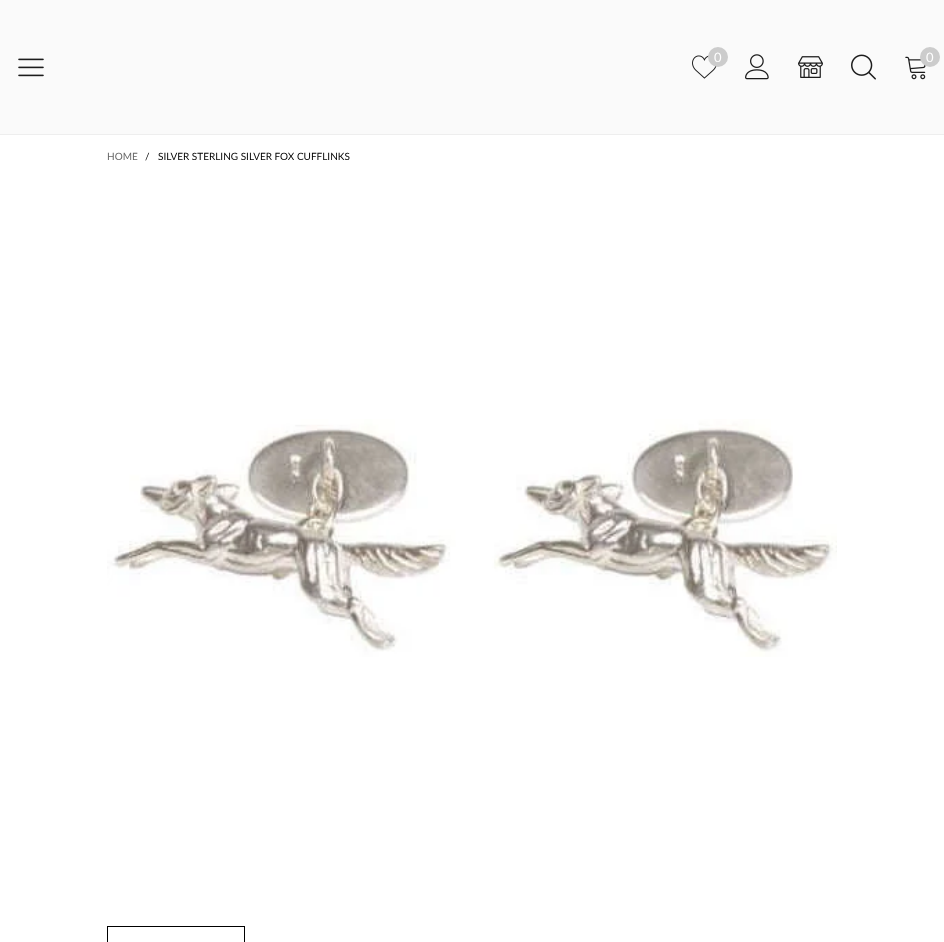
async function draw(canvas) {
	canvas.width = 944;
	canvas.height = 942;
	const c = canvas.getContext('2d');
	c.miterLimit = 4;
	c.fontKerning = 'normal';
	async function loadImage(src) {
		const img = new Image();
		img.src = src;
		await img.decode();
		return img;
	}

	c.fillStyle = '#fff';
	c.fillRect(0, 0, 944, 942);
	c.fillStyle = '#fafafa';
	c.fillRect(0, 0, 944, 134);
	c.fillStyle = '#eee';
	c.fillRect(0, 134, 944, 1);
	c.drawImage(await loadImage('img1.png'), 18, 58, 26, 19);
	c.drawImage(await loadImage('img2.png'), 692, 55, 25, 24);
	c.fillStyle = '#ccc';
	c.beginPath();
	c.arc(718, 57, 10, 0, 2 * Math.PI);
	c.fill();
	c.font = '13px Lato';
	c.fillStyle = '#fff';
	c.fillText('0', 714, 62);
	c.drawImage(await loadImage('img3.png'), 745, 54, 24, 26);
	c.drawImage(await loadImage('img4.png'), 798, 56, 25, 22);
	c.drawImage(await loadImage('img5.png'), 851, 54, 25, 26);
	c.drawImage(await loadImage('img6.png'), 905, 56, 21, 24);
	c.fillStyle = '#ccc';
	c.beginPath();
	c.arc(930, 57, 10, 0, 2 * Math.PI);
	c.fill();
	c.fillStyle = '#fff';
	c.fillText('0', 926, 62);
	c.font = '10px Lato';
	c.fillStyle = '#666';
	c.fillText('HOME', 107, 160);
	c.fillStyle = '#000';
	c.fillText('/', 145, 160);
	c.fillText('SILVER STERLING SILVER FOX CUFFLINKS', 158, 160);
	c.drawImage(await loadImage('img7.png'), 107, 419, 730, 238);
	c.strokeStyle = '#000';
	c.strokeRect(107.5, 926.5, 137, 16);
}

draw(document.querySelector('canvas'));
